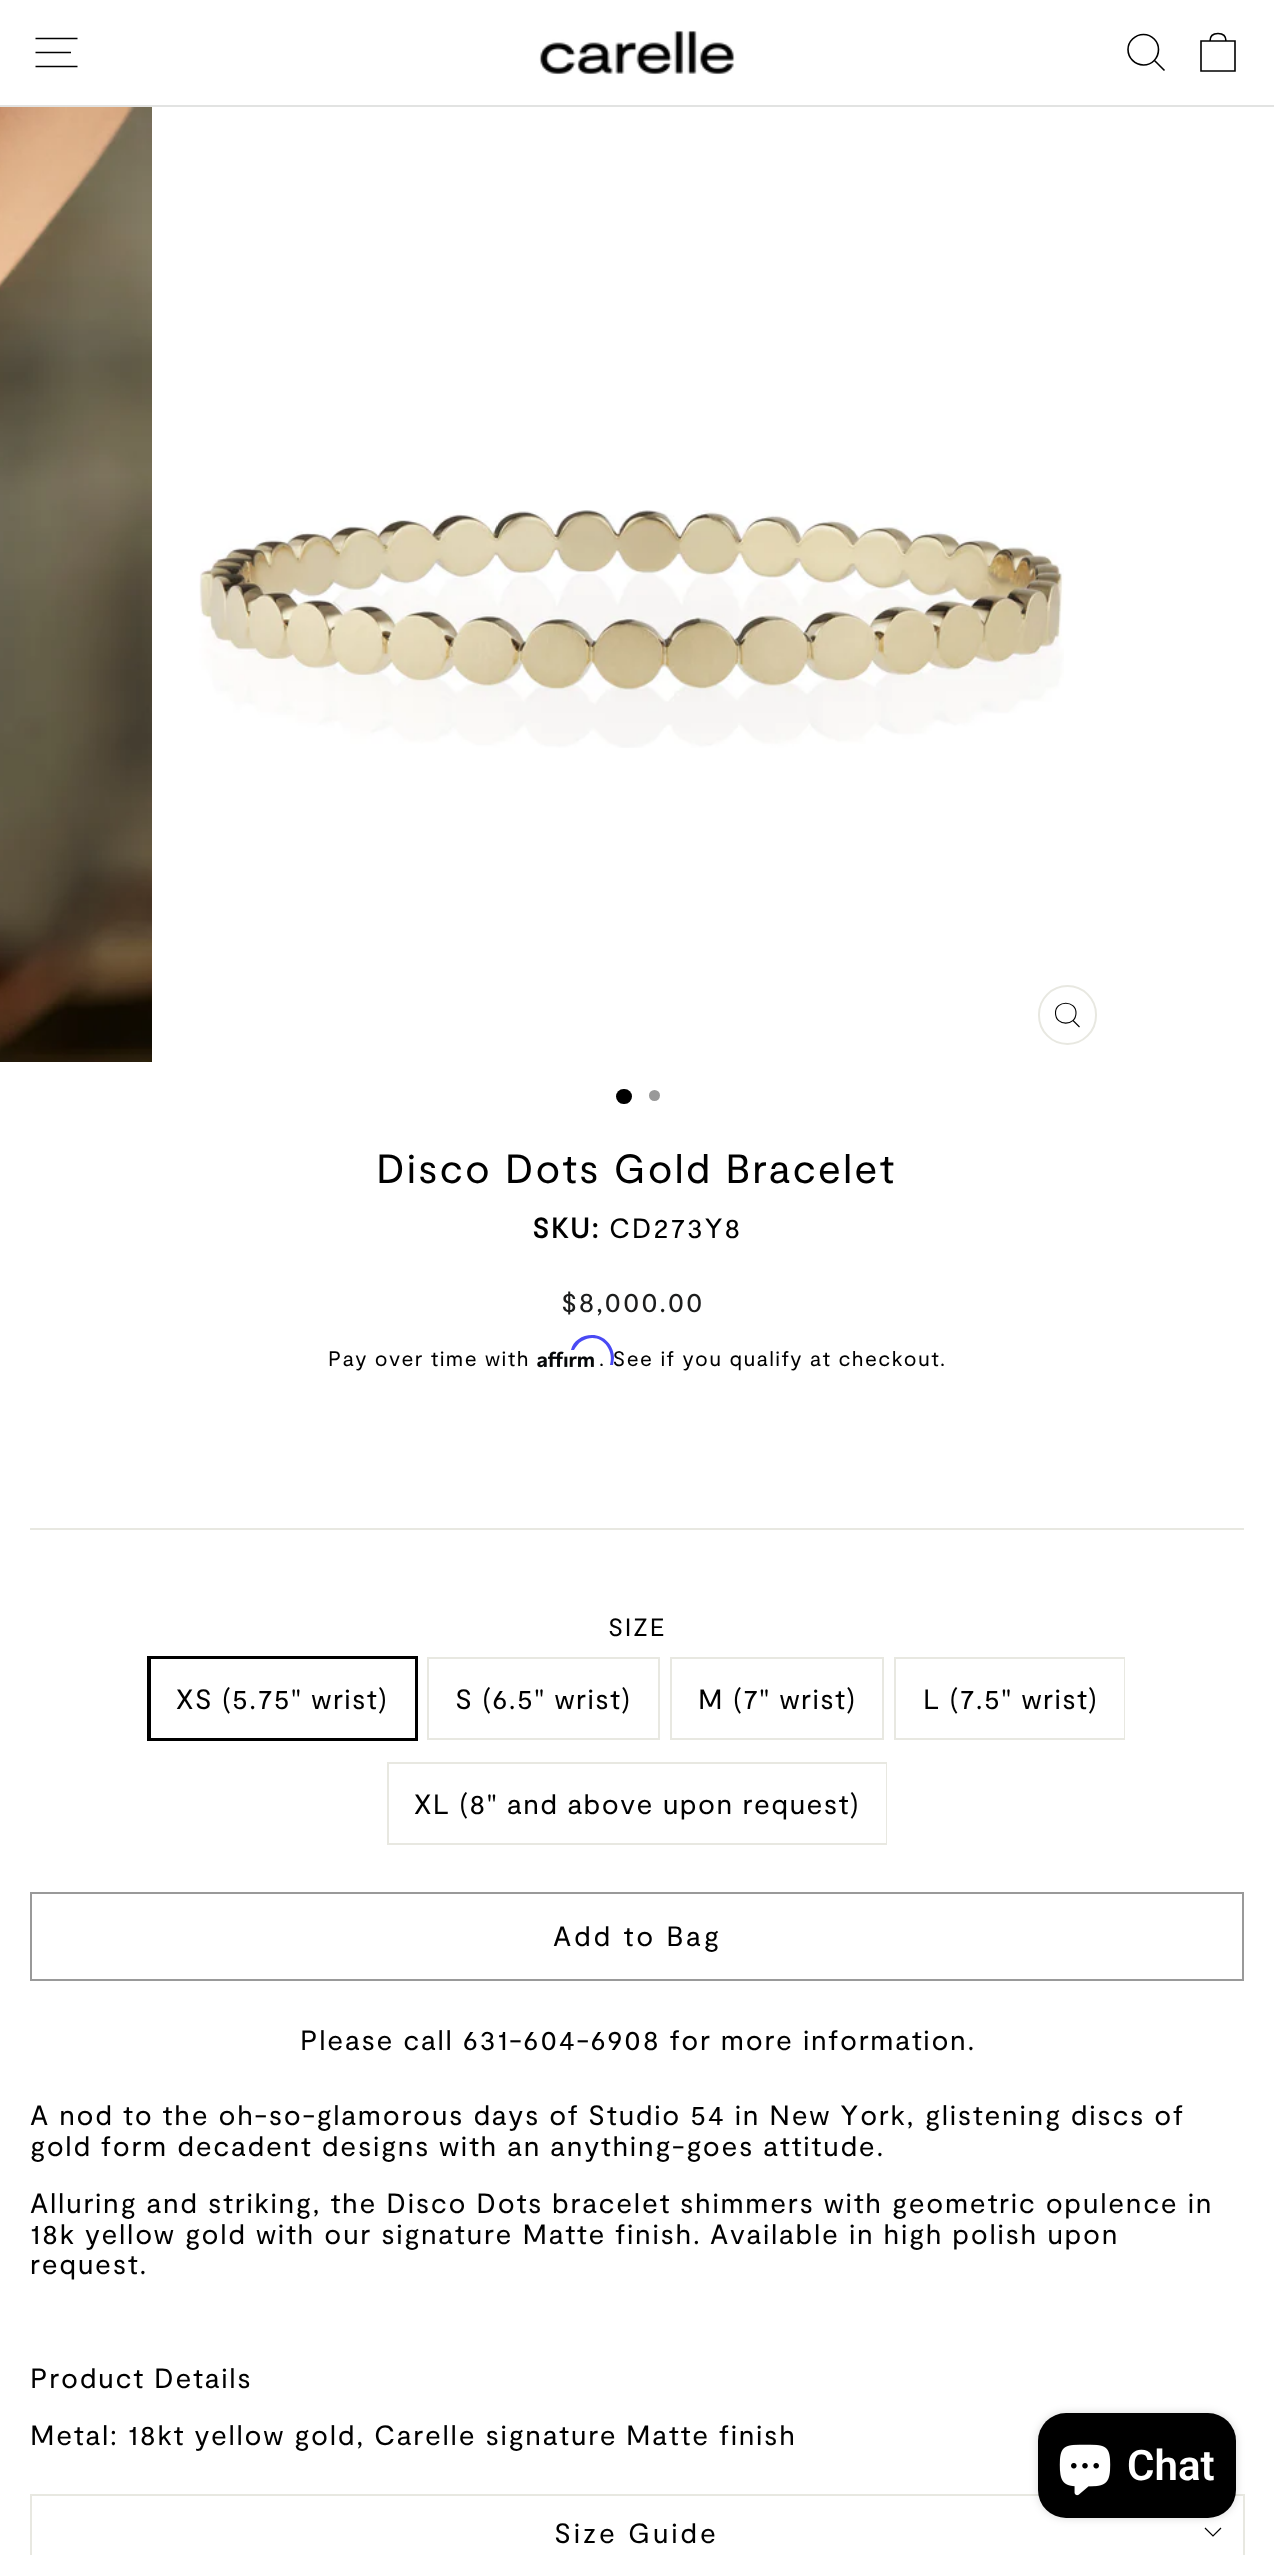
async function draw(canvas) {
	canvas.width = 1274;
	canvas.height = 2555;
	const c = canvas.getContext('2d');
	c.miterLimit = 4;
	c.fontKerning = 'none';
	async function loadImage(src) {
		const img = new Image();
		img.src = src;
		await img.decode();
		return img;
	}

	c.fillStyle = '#fff';
	c.fillRect(0, 0, 1274, 2555);
	c.fillStyle = '#e2e3e2';
	c.fillRect(0, 105, 1274, 2);
	c.beginPath();
	c.moveTo(35.5, 38.5);
	c.lineTo(77.5, 38.5);
	c.moveTo(35.5, 52.5);
	c.lineTo(71, 52.5);
	c.moveTo(35.5, 66.5);
	c.lineTo(77.5, 66.5);
	c.strokeStyle = '#000';
	c.lineWidth = 1.6;
	c.stroke();
	c.drawImage(await loadImage('img1.png'), 539, 30, 196, 45);
	c.beginPath();
	c.moveTo(1158.5, 49.5);
	c.bezierCurveTo(1158.5, 58, 1152, 65, 1143.5, 65);
	c.bezierCurveTo(1135, 65, 1128, 58, 1128, 49.5);
	c.bezierCurveTo(1128, 41.5, 1135, 34.5, 1143.5, 34.5);
	c.bezierCurveTo(1152, 34.5, 1158.5, 41.5, 1158.5, 49.5);
	c.closePath();
	c.moveTo(1164.5, 70.5);
	c.lineTo(1154.5, 60.5);
	c.stroke();
	c.beginPath();
	c.moveTo(1201, 41);
	c.lineTo(1235, 41);
	c.lineTo(1235, 71);
	c.lineTo(1201, 71);
	c.closePath();
	c.moveTo(1210, 41);
	c.bezierCurveTo(1210, 35, 1213.5, 33.5, 1218, 33.5);
	c.bezierCurveTo(1222.5, 33.5, 1226, 35, 1226, 41);
	c.stroke();
	c.drawImage(await loadImage('img2.png'), 0, 107, 152, 955);
	c.drawImage(await loadImage('img3.png'), 199, 510, 865, 238);
	c.beginPath();
	c.roundRect(1039, 986, 57, 58, 28.5);
	c.strokeStyle = '#e8e8e1';
	c.lineWidth = 2;
	c.stroke();
	c.beginPath();
	c.moveTo(1076, 1013);
	c.bezierCurveTo(1076, 1026.5, 1055.5, 1026.5, 1055.5, 1013);
	c.bezierCurveTo(1055.5, 1000, 1076, 1000, 1076, 1013);
	c.closePath();
	c.moveTo(1079.5, 1027);
	c.lineTo(1073, 1020.5);
	c.strokeStyle = '#000';
	c.lineWidth = 1.1;
	c.stroke();
	c.fillStyle = '#000';
	c.beginPath();
	c.roundRect(616, 1089, 16, 15, 7.5);
	c.fill();
	c.fillStyle = '#999';
	c.beginPath();
	c.arc(654.5, 1095.5, 5.5, 0, 2 * Math.PI);
	c.fill();
	c.letterSpacing = '2px';
	c.font = '40.9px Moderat';
	c.fillStyle = '#000';
	c.fillText('Disco Dots Gold Bracelet', 376, 1183);
	c.letterSpacing = '1.68px';
	c.font = 'bold 28px Moderat';
	c.fillText('SKU:', 532, 1238);
	c.font = '28px Moderat';
	c.fillText('CD273Y8', 609, 1238);
	c.letterSpacing = '1.4px';
	c.fillStyle = '#1c1d1d';
	c.fillText('$8,000.00', 561, 1312);
	c.font = '21px Moderat';
	c.fillStyle = '#000';
	c.fillText('Pay over time with', 328, 1366);
	c.drawImage(await loadImage('img4.png'), 537, 1351, 57, 17);
	c.fillText('. See if you qualify at checkout.', 599, 1366);
	c.fillStyle = '#4a4af4';
	c.beginPath();
	c.moveTo(592, 1335);
	c.bezierCurveTo(582, 1335, 573, 1341, 571, 1350);
	c.lineTo(574, 1350);
	c.bezierCurveTo(576, 1347, 578, 1343, 582, 1341);
	c.bezierCurveTo(599, 1331, 615, 1348, 610, 1365);
	c.lineTo(613, 1365);
	c.lineTo(614, 1358);
	c.bezierCurveTo(614, 1345, 604, 1335, 592, 1335);
	c.closePath();
	c.fill();
	c.fillStyle = '#e8e8e1';
	c.fillRect(30, 1528, 1214, 2);
	c.letterSpacing = '1.5px';
	c.font = '25px Moderat';
	c.fillStyle = '#000';
	c.fillText('SIZE', 608, 1636);
	c.lineWidth = 4;
	c.strokeRect(149, 1658, 267, 81);
	c.fillStyle = '#fff';
	c.fillRect(151, 1659, 264, 79);
	c.letterSpacing = '1.4px';
	c.font = '28px Moderat';
	c.fillStyle = '#000';
	c.fillText('XS (5.75" wrist)', 176, 1709);
	c.strokeStyle = '#e8e8e1';
	c.lineWidth = 2;
	c.strokeRect(428, 1658, 231, 81);
	c.fillText('S (6.5" wrist)', 455, 1709);
	c.strokeRect(671, 1658, 212, 81);
	c.fillText('M (7" wrist)', 698, 1709);
	c.strokeRect(895, 1658, 229, 81);
	c.fillStyle = '#fff';
	c.fillRect(1123, 1659, 1, 79);
	c.fillStyle = '#000';
	c.fillText('L (7.5" wrist)', 923, 1709);
	c.strokeRect(388, 1763, 498, 81);
	c.fillStyle = '#fff';
	c.fillRect(885, 1764, 1, 79);
	c.fillStyle = '#000';
	c.fillText('XL (8" and above upon request)', 414, 1814);
	c.strokeStyle = '#999';
	c.strokeRect(31, 1893, 1212, 87);
	c.letterSpacing = '2.75px';
	c.fillText('Add to Bag', 553, 1946);
	c.letterSpacing = '1.68px';
	for (const [text, x, y] of [
		['Please call 631-604-6908 for more information.', 300, 2050],
		['A nod to the oh-so-glamorous days of', 30, 2125],
		['Studio 54 in New York,', 588, 2125],
		['glistening discs of', 925, 2125],
		['gold form decadent designs', 30, 2156],
		['with an anything-goes attitude.', 439, 2156],
		['Alluring and striking, the Disco Dots', 30, 2213],
		['bracelet', 552, 2213],
		['shimmers with geometric opulence in', 680, 2213],
		['18k yellow gold with our signature Matte finish.', 30, 2244],
		['Available in high polish upon', 710, 2244],
		['request.', 30, 2274],
		['Product Details', 30, 2388],
		['Metal: 18kt yellow gold, Carelle signature', 30, 2445],
		['Matte finish', 626, 2445],
	]) {
		c.fillText(text, x, y);
	}
	for (const [x, y, w, h, color] of [
		[30, 2494, 1214, 2, '#e8e8e1'],
		[1243, 2494, 2, 61, '#e8e8e1'],
		[30, 2494, 2, 61, '#e8e8e1'],
	]) {
		c.fillStyle = color;
		c.fillRect(x, y, w, h);
	}
	c.letterSpacing = '2.75px';
	c.fillStyle = '#000';
	c.fillText('Size Guide', 554, 2543);
	c.beginPath();
	c.moveTo(1205, 2528);
	c.lineTo(1213, 2536);
	c.lineTo(1221, 2528);
	c.strokeStyle = '#000';
	c.lineWidth = 1.2;
	c.stroke();
	c.fillStyle = '#00000026';
	c.filter = 'blur(4.5px)';
	c.beginPath();
	c.roundRect(1038, 2413, 198, 105, 28);
	c.fill();
	c.filter = 'none';
	c.fillStyle = '#000';
	c.beginPath();
	c.roundRect(1038, 2413, 198, 105, 28);
	c.fill();
	c.drawImage(await loadImage('img5.png'), 1059, 2444, 52, 52);
	c.letterSpacing = '0px';
	c.font = '600 42px Roboto';
	c.fillStyle = '#fff';
	c.fillText('Chat', 1127, 2480);
}

draw(document.querySelector('canvas'));
